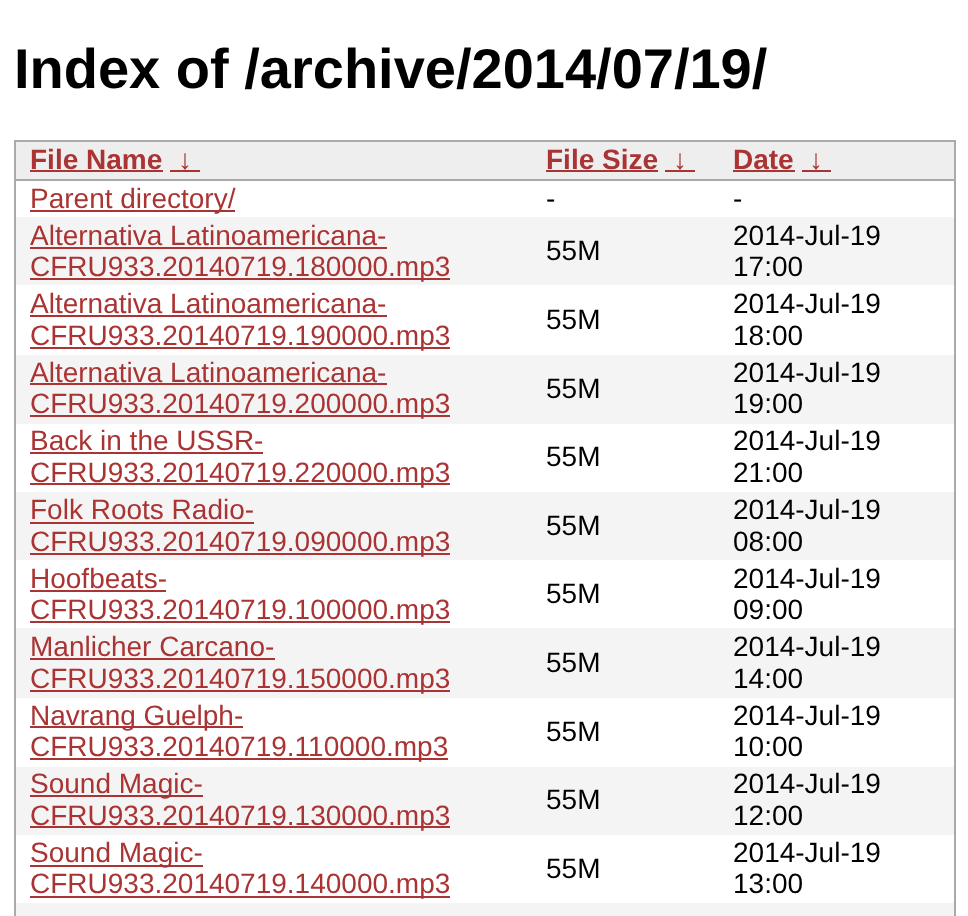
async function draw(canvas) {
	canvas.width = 968;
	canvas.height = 916;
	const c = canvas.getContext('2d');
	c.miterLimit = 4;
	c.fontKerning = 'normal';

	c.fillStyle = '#fff';
	c.fillRect(0, 0, 968, 916);
	c.font = 'bold 56px Liberation Sans';
	c.fillStyle = '#000';
	c.fillText('Index of /archive/2014/07/19/', 14, 88);
	c.strokeStyle = '#aaa';
	c.lineWidth = 2;
	c.strokeRect(15, 141, 940, 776);
	c.fillStyle = '#eee';
	c.fillRect(16, 142, 938, 37);
	c.fillStyle = '#aaa';
	c.fillRect(16, 179, 938, 2);
	c.font = 'bold 28px Liberation Sans';
	c.fillStyle = '#a33';
	c.fillText('File Name', 30, 169);
	c.fillRect(30, 170, 133, 2);
	c.fillText('↓', 178, 169);
	c.fillRect(170, 170, 30, 2);
	c.fillText('File Size', 546, 169);
	c.fillRect(546, 170, 112, 2);
	c.fillText('↓', 673, 169);
	c.fillRect(665, 170, 30, 2);
	c.fillText('Date', 733, 169);
	c.fillRect(733, 170, 62, 2);
	c.fillText('↓', 809, 169);
	c.fillRect(802, 170, 29, 2);
	c.fillRect(30, 210, 205, 2);
	c.font = '28px Liberation Sans';
	c.fillText('Parent directory/', 30, 208);
	c.fillStyle = '#000';
	c.fillText('-', 546, 208);
	c.fillText('-', 733, 208);
	c.fillStyle = '#f4f4f4';
	c.fillRect(16, 217, 938, 68);
	c.fillStyle = '#a33';
	c.fillText('Alternativa Latinoamericana-', 30, 245);
	c.fillRect(30, 247, 357, 2);
	c.fillRect(30, 278, 420, 2);
	c.fillText('CFRU933.20140719.180000.mp3', 30, 276);
	c.fillStyle = '#000';
	for (const [text, x, y] of [
		['55M', 546, 260],
		['2014-Jul-19', 733, 245],
		['17:00', 733, 276],
	]) {
		c.fillText(text, x, y);
	}
	c.fillStyle = '#a33';
	c.fillText('Alternativa Latinoamericana-', 30, 313);
	c.fillRect(30, 315, 357, 2);
	c.fillRect(30, 347, 420, 2);
	c.fillText('CFRU933.20140719.190000.mp3', 30, 345);
	c.fillStyle = '#000';
	for (const [text, x, y] of [
		['55M', 546, 329],
		['2014-Jul-19', 733, 313],
		['18:00', 733, 345],
	]) {
		c.fillText(text, x, y);
	}
	c.fillStyle = '#f4f4f4';
	c.fillRect(16, 355, 938, 69);
	c.fillStyle = '#a33';
	c.fillText('Alternativa Latinoamericana-', 30, 382);
	c.fillRect(30, 383, 357, 2);
	c.fillRect(30, 415, 420, 2);
	c.fillText('CFRU933.20140719.200000.mp3', 30, 413);
	c.fillStyle = '#000';
	for (const [text, x, y] of [
		['55M', 546, 398],
		['2014-Jul-19', 733, 382],
		['19:00', 733, 413],
	]) {
		c.fillText(text, x, y);
	}
	c.fillStyle = '#a33';
	c.fillText('Back in the USSR-', 30, 450);
	c.fillRect(30, 452, 233, 2);
	c.fillRect(30, 483, 420, 2);
	c.fillText('CFRU933.20140719.220000.mp3', 30, 482);
	c.fillStyle = '#000';
	for (const [text, x, y] of [
		['55M', 546, 466],
		['2014-Jul-19', 733, 450],
		['21:00', 733, 482],
	]) {
		c.fillText(text, x, y);
	}
	c.fillStyle = '#f4f4f4';
	c.fillRect(16, 492, 938, 68);
	c.fillStyle = '#a33';
	c.fillText('Folk Roots Radio-', 30, 519);
	c.fillRect(30, 522, 224, 2);
	c.fillRect(30, 553, 420, 2);
	c.fillText('CFRU933.20140719.090000.mp3', 30, 551);
	c.fillStyle = '#000';
	for (const [text, x, y] of [
		['55M', 546, 535],
		['2014-Jul-19', 733, 519],
		['08:00', 733, 551],
	]) {
		c.fillText(text, x, y);
	}
	c.fillStyle = '#a33';
	c.fillText('Hoofbeats-', 30, 588);
	c.fillRect(30, 590, 136, 2);
	c.fillRect(30, 621, 420, 2);
	c.fillText('CFRU933.20140719.100000.mp3', 30, 619);
	c.fillStyle = '#000';
	for (const [text, x, y] of [
		['55M', 546, 603],
		['2014-Jul-19', 733, 588],
		['09:00', 733, 619],
	]) {
		c.fillText(text, x, y);
	}
	c.fillStyle = '#f4f4f4';
	c.fillRect(16, 628, 938, 70);
	c.fillStyle = '#a33';
	c.fillText('Manlicher Carcano-', 30, 656);
	c.fillRect(30, 658, 245, 2);
	c.fillRect(30, 690, 420, 2);
	c.fillText('CFRU933.20140719.150000.mp3', 30, 688);
	c.fillStyle = '#000';
	for (const [text, x, y] of [
		['55M', 546, 672],
		['2014-Jul-19', 733, 656],
		['14:00', 733, 688],
	]) {
		c.fillText(text, x, y);
	}
	c.fillStyle = '#a33';
	c.fillRect(30, 726, 213, 2);
	c.fillText('Navrang Guelph-', 30, 725);
	c.fillRect(30, 758, 418, 2);
	c.fillText('CFRU933.20140719.110000.mp3', 30, 756);
	c.fillStyle = '#000';
	for (const [text, x, y] of [
		['55M', 546, 741],
		['2014-Jul-19', 733, 725],
		['10:00', 733, 756],
	]) {
		c.fillText(text, x, y);
	}
	c.fillStyle = '#f4f4f4';
	c.fillRect(16, 767, 938, 68);
	c.fillStyle = '#a33';
	c.fillRect(30, 795, 173, 2);
	c.fillText('Sound Magic-', 30, 793);
	c.fillRect(30, 826, 420, 2);
	c.fillText('CFRU933.20140719.130000.mp3', 30, 825);
	c.fillStyle = '#000';
	for (const [text, x, y] of [
		['55M', 546, 809],
		['2014-Jul-19', 733, 793],
		['12:00', 733, 825],
	]) {
		c.fillText(text, x, y);
	}
	c.fillStyle = '#a33';
	c.fillRect(30, 865, 173, 2);
	c.fillText('Sound Magic-', 30, 862);
	c.fillRect(30, 896, 420, 2);
	c.fillText('CFRU933.20140719.140000.mp3', 30, 893);
	c.fillStyle = '#000';
	for (const [text, x, y] of [
		['55M', 546, 878],
		['2014-Jul-19', 733, 862],
		['13:00', 733, 893],
	]) {
		c.fillText(text, x, y);
	}
	c.fillStyle = '#f4f4f4';
	c.fillRect(16, 903, 938, 13);
}

draw(document.querySelector('canvas'));
